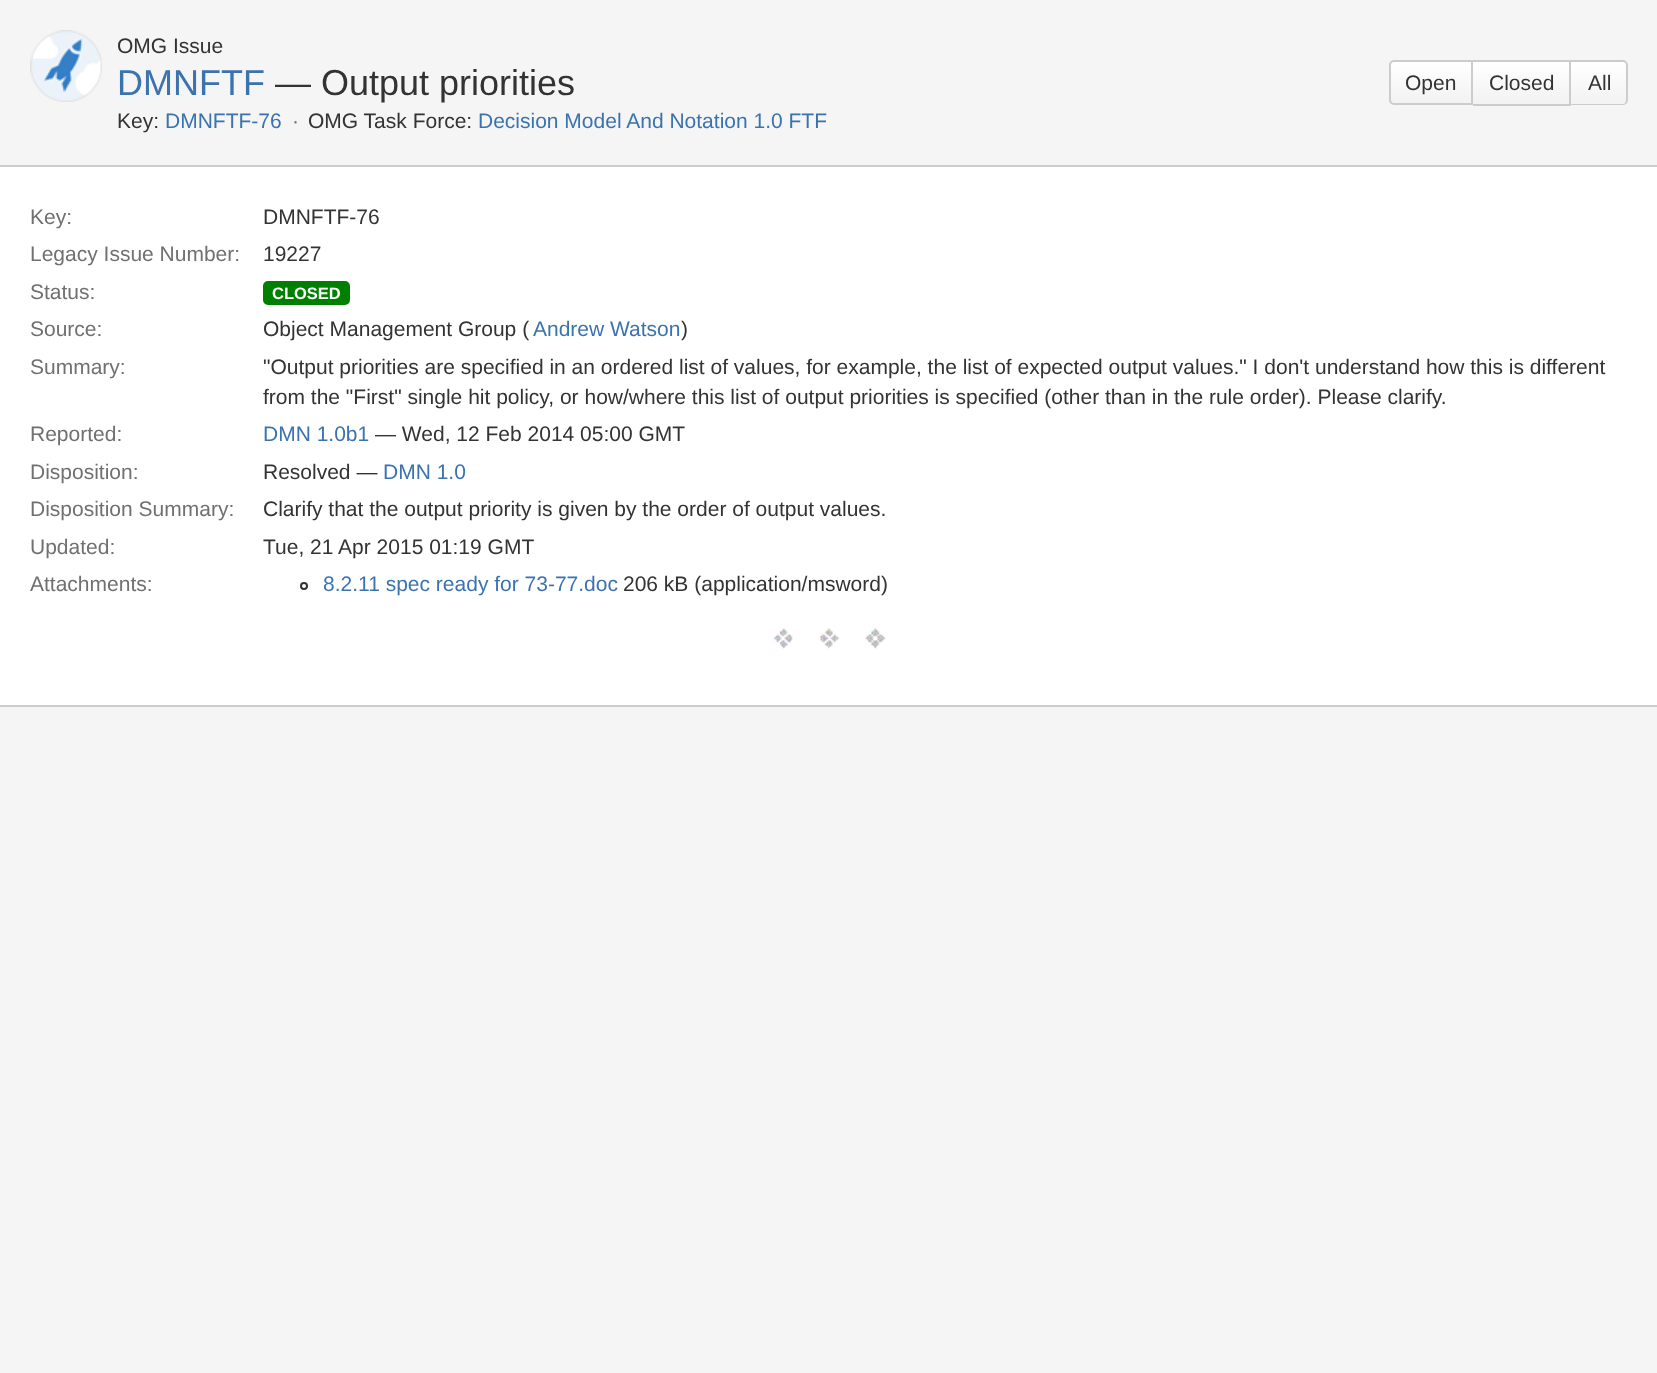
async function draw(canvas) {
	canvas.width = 1657;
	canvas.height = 1373;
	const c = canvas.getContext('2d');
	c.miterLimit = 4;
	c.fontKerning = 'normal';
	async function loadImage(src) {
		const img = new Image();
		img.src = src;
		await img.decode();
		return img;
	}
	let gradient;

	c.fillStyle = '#f5f5f5';
	c.fillRect(0, 0, 1657, 1373);
	c.drawImage(await loadImage('img1.png'), 30, 30, 72, 72);
	c.font = '21px Liberation Sans';
	c.fillStyle = '#333';
	c.fillText('OMG Issue', 117, 53);
	c.font = '36px Liberation Sans';
	c.fillStyle = '#3b73af';
	c.fillText('DMNFTF', 117, 95);
	c.fillStyle = '#333';
	c.fillText('— Output priorities', 275, 95);
	c.font = '21px Liberation Sans';
	c.fillText('Key:', 117, 128);
	c.fillStyle = '#3b73af';
	c.fillText('DMNFTF-76', 165, 128);
	c.fillStyle = '#707070';
	c.fillText('·', 292, 128);
	c.fillStyle = '#333';
	c.fillText('OMG Task Force:', 308, 128);
	c.fillStyle = '#3b73af';
	c.fillText('Decision Model And Notation 1.0 FTF', 478, 128);
	c.save();
	c.beginPath();
	c.roundRect(1389, 60, 84, 45, [5, 0, 0, 5]);
	c.clip();
	gradient = c.createLinearGradient(1431, 62, 1431, 104);
	gradient.addColorStop(0, '#fff');
	gradient.addColorStop(1, '#f2f2f2');
	c.fillStyle = gradient;
	c.fillRect(1389, 62, 82, 42);
	c.restore();
	c.beginPath();
	c.roundRect(1390, 61, 82, 43, [4, 0, 0, 4]);
	c.strokeStyle = '#ccc';
	c.lineWidth = 2;
	c.stroke();
	c.fillStyle = '#333';
	c.fillText('Open', 1405, 90);
	gradient = c.createLinearGradient(1521, 62, 1521, 104);
	gradient.addColorStop(0, '#fff');
	gradient.addColorStop(1, '#f2f2f2');
	c.fillStyle = gradient;
	c.fillRect(1473, 62, 96, 42);
	for (const [x, y, w, h, color] of [
		[1473, 60, 98, 2, '#ccc'],
		[1569, 60, 2, 45, '#ccc'],
		[1473, 104, 98, 2, '#ccc'],
	]) {
		c.fillStyle = color;
		c.fillRect(x, y, w, h);
	}
	c.fillStyle = '#333';
	c.fillText('Closed', 1489, 90);
	gradient = c.createLinearGradient(1598, 62, 1598, 104);
	gradient.addColorStop(0, '#fff');
	gradient.addColorStop(1, '#f2f2f2');
	c.fillStyle = gradient;
	c.beginPath();
	c.roundRect(1571, 62, 55, 42, [0, 3, 3, 0]);
	c.fill();
	c.fillStyle = '#ccc';
	c.beginPath();
	c.moveTo(1570, 60);
	c.lineTo(1623, 60);
	c.bezierCurveTo(1625, 60, 1628, 62, 1628, 65);
	c.lineTo(1628, 100);
	c.bezierCurveTo(1628, 103, 1625, 105, 1623, 105);
	c.lineTo(1570, 105);
	c.closePath();
	c.moveTo(1570, 62);
	c.lineTo(1623, 62);
	c.bezierCurveTo(1625, 62, 1626, 63, 1626, 65);
	c.lineTo(1626, 100);
	c.bezierCurveTo(1626, 102, 1625, 104, 1623, 104);
	c.lineTo(1570, 104);
	c.closePath();
	c.fill('evenodd');
	c.fillStyle = '#333';
	c.fillText('All', 1588, 90);
	for (const [x, y, w, h, color] of [
		[0, 167, 1657, 538, '#fff'],
		[0, 165, 1657, 2, '#ccc'],
		[0, 705, 1657, 2, '#ccc'],
	]) {
		c.fillStyle = color;
		c.fillRect(x, y, w, h);
	}
	c.fillStyle = '#707070';
	c.fillText('Key:', 30, 224);
	c.fillStyle = '#333';
	c.fillText('DMNFTF-76', 263, 224);
	c.fillStyle = '#707070';
	c.fillText('Legacy Issue Number:', 30, 261);
	c.fillStyle = '#333';
	c.fillText('19227', 263, 261);
	c.fillStyle = '#707070';
	c.fillText('Status:', 30, 299);
	c.fillStyle = '#008000';
	c.beginPath();
	c.roundRect(264, 282, 85, 22, 4);
	c.fill();
	c.strokeStyle = '#008000';
	c.stroke();
	c.font = 'bold 16.5px Liberation Sans';
	c.fillStyle = '#fff';
	c.fillText('CLOSED', 272, 299);
	c.font = '21px Liberation Sans';
	c.fillStyle = '#707070';
	c.fillText('Source:', 30, 336);
	c.fillStyle = '#333';
	c.fillText('Object Management Group (', 263, 336);
	c.fillStyle = '#3b73af';
	c.fillText('Andrew Watson', 533, 336);
	c.fillStyle = '#333';
	c.fillText(')', 681, 336);
	c.fillStyle = '#707070';
	c.fillText('Summary:', 30, 374);
	c.fillStyle = '#333';
	c.fillText('"Output priorities are specified in an ordered list of values, for example, the list of expected output values." I don\'t understand how this is different', 263, 374);
	c.fillText('from the "First" single hit policy, or how/where this list of output priorities is specified (other than in the rule order). Please clarify.', 263, 404);
	c.fillStyle = '#707070';
	c.fillText('Reported:', 30, 441);
	c.fillStyle = '#3b73af';
	c.fillText('DMN 1.0b1', 263, 441);
	c.fillStyle = '#333';
	c.fillText('— Wed, 12 Feb 2014 05:00 GMT', 375, 441);
	c.fillStyle = '#707070';
	c.fillText('Disposition:', 30, 479);
	c.fillStyle = '#333';
	c.fillText('Resolved —', 263, 479);
	c.fillStyle = '#3b73af';
	c.fillText('DMN 1.0', 383, 479);
	c.fillStyle = '#707070';
	c.fillText('Disposition Summary:', 30, 516);
	c.fillStyle = '#333';
	c.fillText('Clarify that the output priority is given by the order of output values.', 263, 516);
	c.fillStyle = '#707070';
	c.fillText('Updated:', 30, 554);
	c.fillStyle = '#333';
	c.fillText('Tue, 21 Apr 2015 01:19 GMT', 263, 554);
	c.fillStyle = '#707070';
	c.fillText('Attachments:', 30, 591);
	c.beginPath();
	c.arc(304, 586, 3, 0, 2 * Math.PI);
	c.strokeStyle = '#333';
	c.stroke();
	c.fillStyle = '#3b73af';
	c.fillText('8.2.11 spec ready for 73-77.doc', 323, 591);
	c.fillStyle = '#333';
	c.fillText('206 kB (application/msword)', 623, 591);
	c.drawImage(await loadImage('img2.png'), 773, 628, 113, 21);
}

draw(document.querySelector('canvas'));
